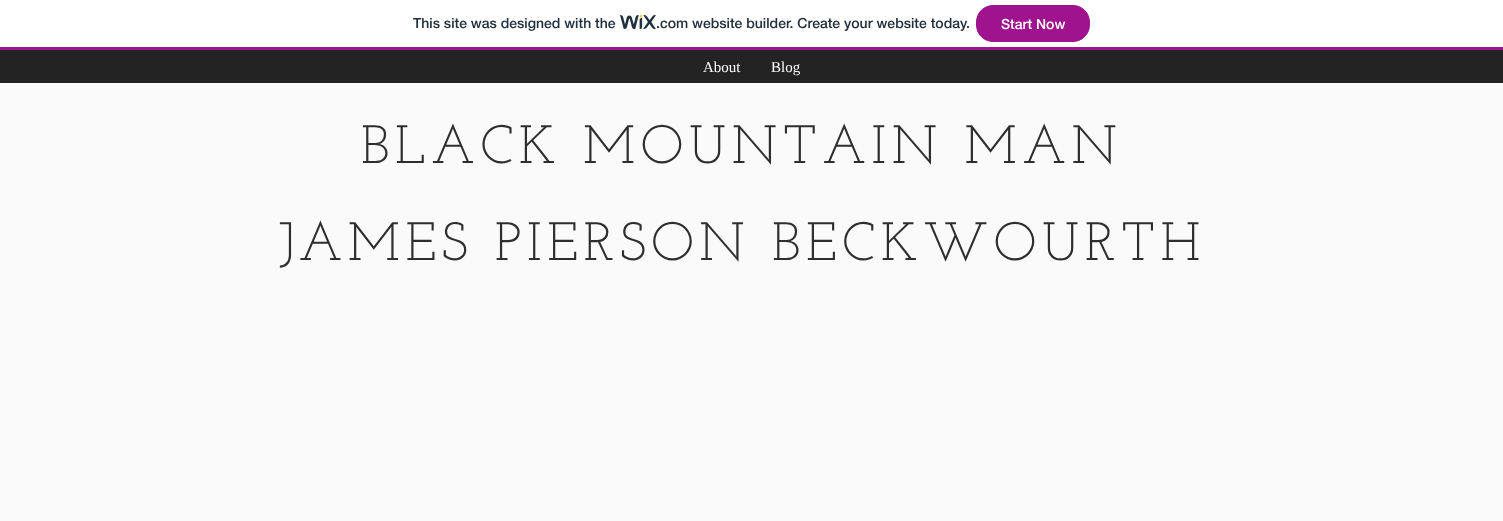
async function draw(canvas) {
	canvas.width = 1503;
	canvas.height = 521;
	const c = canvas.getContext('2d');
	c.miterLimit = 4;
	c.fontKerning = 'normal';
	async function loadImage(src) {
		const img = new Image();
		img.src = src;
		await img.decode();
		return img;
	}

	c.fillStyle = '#fff';
	c.fillRect(0, 0, 1503, 521);
	c.fillStyle = '#a0138e';
	c.fillRect(0, 47, 1503, 3);
	c.font = '500 14px "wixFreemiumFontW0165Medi"';
	c.fillStyle = '#20303c';
	c.fillText('This site was designed with the', 413, 28);
	c.drawImage(await loadImage('img1.png'), 620, 15, 36, 15);
	c.fillText('.com website builder. Create your website today.', 656, 28);
	c.fillStyle = '#a0138e';
	c.beginPath();
	c.roundRect(976.5, 5.5, 113, 36, 16.5);
	c.fill();
	c.strokeStyle = '#a0138e';
	c.stroke();
	c.fillStyle = '#fff';
	c.fillText('Start Now', 1001, 29);
	c.fillStyle = '#242323';
	c.fillRect(0, 50, 1503, 33);
	c.font = '15px Liberation Serif';
	c.fillStyle = '#fff';
	c.fillText('About', 703, 72);
	c.fillText('Blog', 771, 72);
	c.fillStyle = '#fafafa';
	c.fillRect(0, 83, 1503, 438);
	c.letterSpacing = '5.5px';
	c.font = '54px Josefin Slab';
	c.fillStyle = '#302d2d';
	c.fillText('BLACK MOUNTAIN MAN', 361, 163);
	c.fillText('JAMES PIERSON BECKWOURTH', 278, 260);
}

draw(document.querySelector('canvas'));
